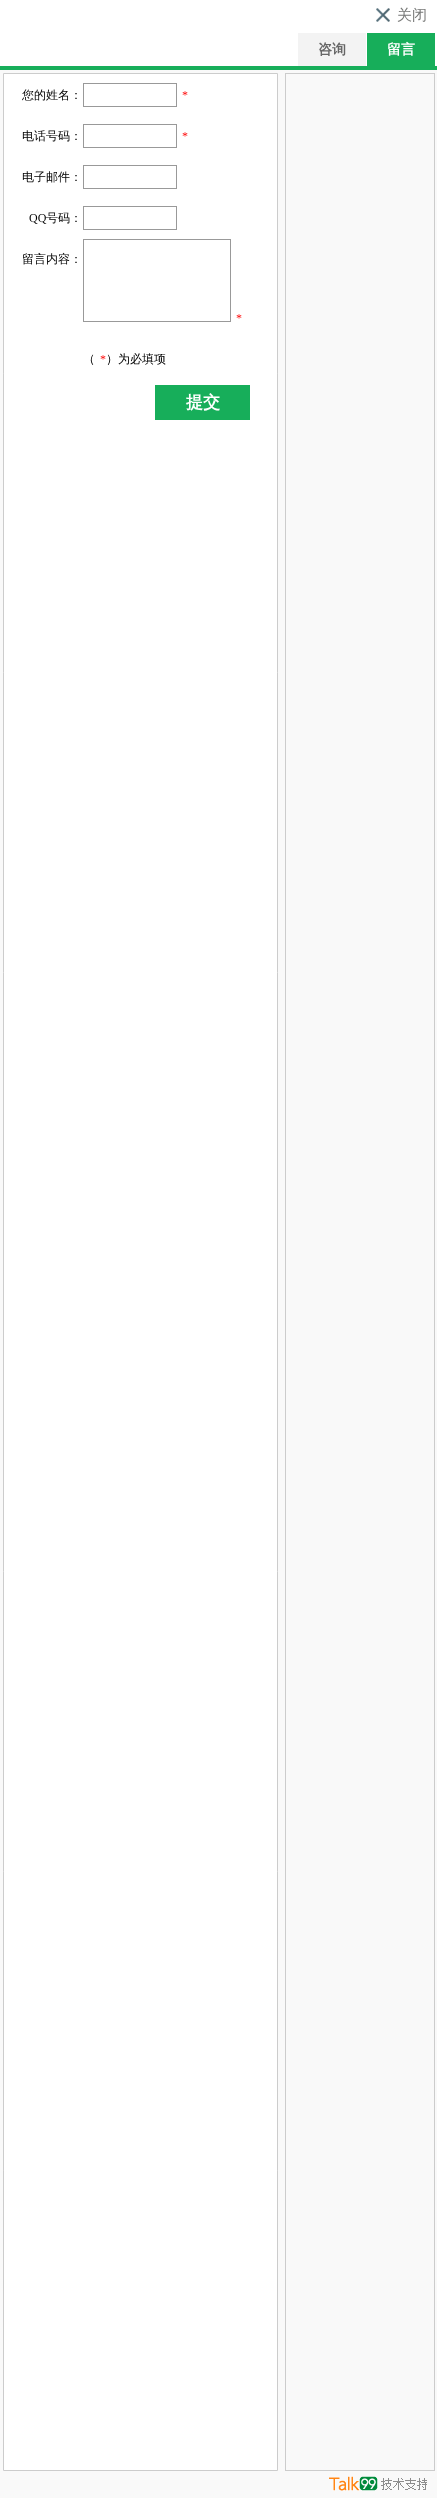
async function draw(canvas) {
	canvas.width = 437;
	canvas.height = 2498;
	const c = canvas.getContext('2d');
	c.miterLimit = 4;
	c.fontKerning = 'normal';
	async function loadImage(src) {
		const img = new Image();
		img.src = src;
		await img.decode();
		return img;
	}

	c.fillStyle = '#f9f9f9';
	c.fillRect(0, 0, 437, 2498);
	c.fillStyle = '#fff';
	c.fillRect(0, 0, 437, 66);
	c.drawImage(await loadImage('img1.png'), 376, 8, 14, 14);
	c.font = '500 15px WenQuanYi Zen Hei';
	c.fillStyle = '#777877';
	c.fillText('关闭', 397, 20);
	c.fillStyle = '#f3f3f3';
	c.fillRect(298, 33, 68, 33);
	c.font = 'bold 14px WenQuanYi Zen Hei';
	c.fillStyle = '#666';
	c.fillText('咨询', 318, 54);
	c.fillStyle = '#17ae5a';
	c.fillRect(367, 33, 68, 33);
	c.fillStyle = '#fff';
	c.fillText('留言', 387, 54);
	c.fillStyle = '#17ae5a';
	c.fillRect(0, 66, 437, 4);
	c.fillStyle = '#fff';
	c.beginPath();
	c.rect(3.5, 73.5, 274, 2397);
	c.fill();
	c.strokeStyle = '#ccc';
	c.stroke();
	c.font = '500 12px WenQuanYi Zen Hei';
	c.fillStyle = '#000';
	c.fillText('您的姓名：', 22, 99);
	c.strokeStyle = '#999';
	c.strokeRect(83.5, 83.5, 93, 23);
	c.font = '12px Liberation Serif';
	c.fillStyle = '#f00';
	c.fillText('*', 182, 99);
	c.font = '500 12px WenQuanYi Zen Hei';
	c.fillStyle = '#000';
	c.fillText('电话号码：', 22, 140);
	c.strokeRect(83.5, 124.5, 93, 23);
	c.font = '12px Liberation Serif';
	c.fillStyle = '#f00';
	c.fillText('*', 182, 140);
	c.font = '500 12px WenQuanYi Zen Hei';
	c.fillStyle = '#000';
	c.fillText('电子邮件：', 22, 181);
	c.strokeRect(83.5, 165.5, 93, 23);
	c.font = '12px Liberation Serif';
	c.fillText('QQ', 29, 222);
	c.font = '500 12px WenQuanYi Zen Hei';
	c.fillText('号码：', 46, 222);
	c.strokeRect(83.5, 206.5, 93, 23);
	c.fillText('留言内容：', 22, 263);
	c.strokeRect(83.5, 239.5, 147, 82);
	c.font = '12px Liberation Serif';
	c.fillStyle = '#f00';
	c.fillText('*', 236, 322);
	c.font = '500 12px WenQuanYi Zen Hei';
	c.fillStyle = '#000';
	c.fillText('（', 83, 363);
	c.font = '12px Liberation Serif';
	c.fillStyle = '#f00';
	c.fillText('*', 100, 363);
	c.font = '500 12px WenQuanYi Zen Hei';
	c.fillStyle = '#000';
	c.fillText('）为必填项', 106, 363);
	c.fillStyle = '#17ae5a';
	c.fillRect(155, 385, 95, 35);
	c.font = 'bold 17px WenQuanYi Zen Hei';
	c.fillStyle = '#fff';
	c.fillText('提交', 186, 408);
	c.strokeStyle = '#ccc';
	c.strokeRect(285.5, 73.5, 149, 2397);
	c.drawImage(await loadImage('img2.png'), 329, 2476, 98, 15);
}

draw(document.querySelector('canvas'));
